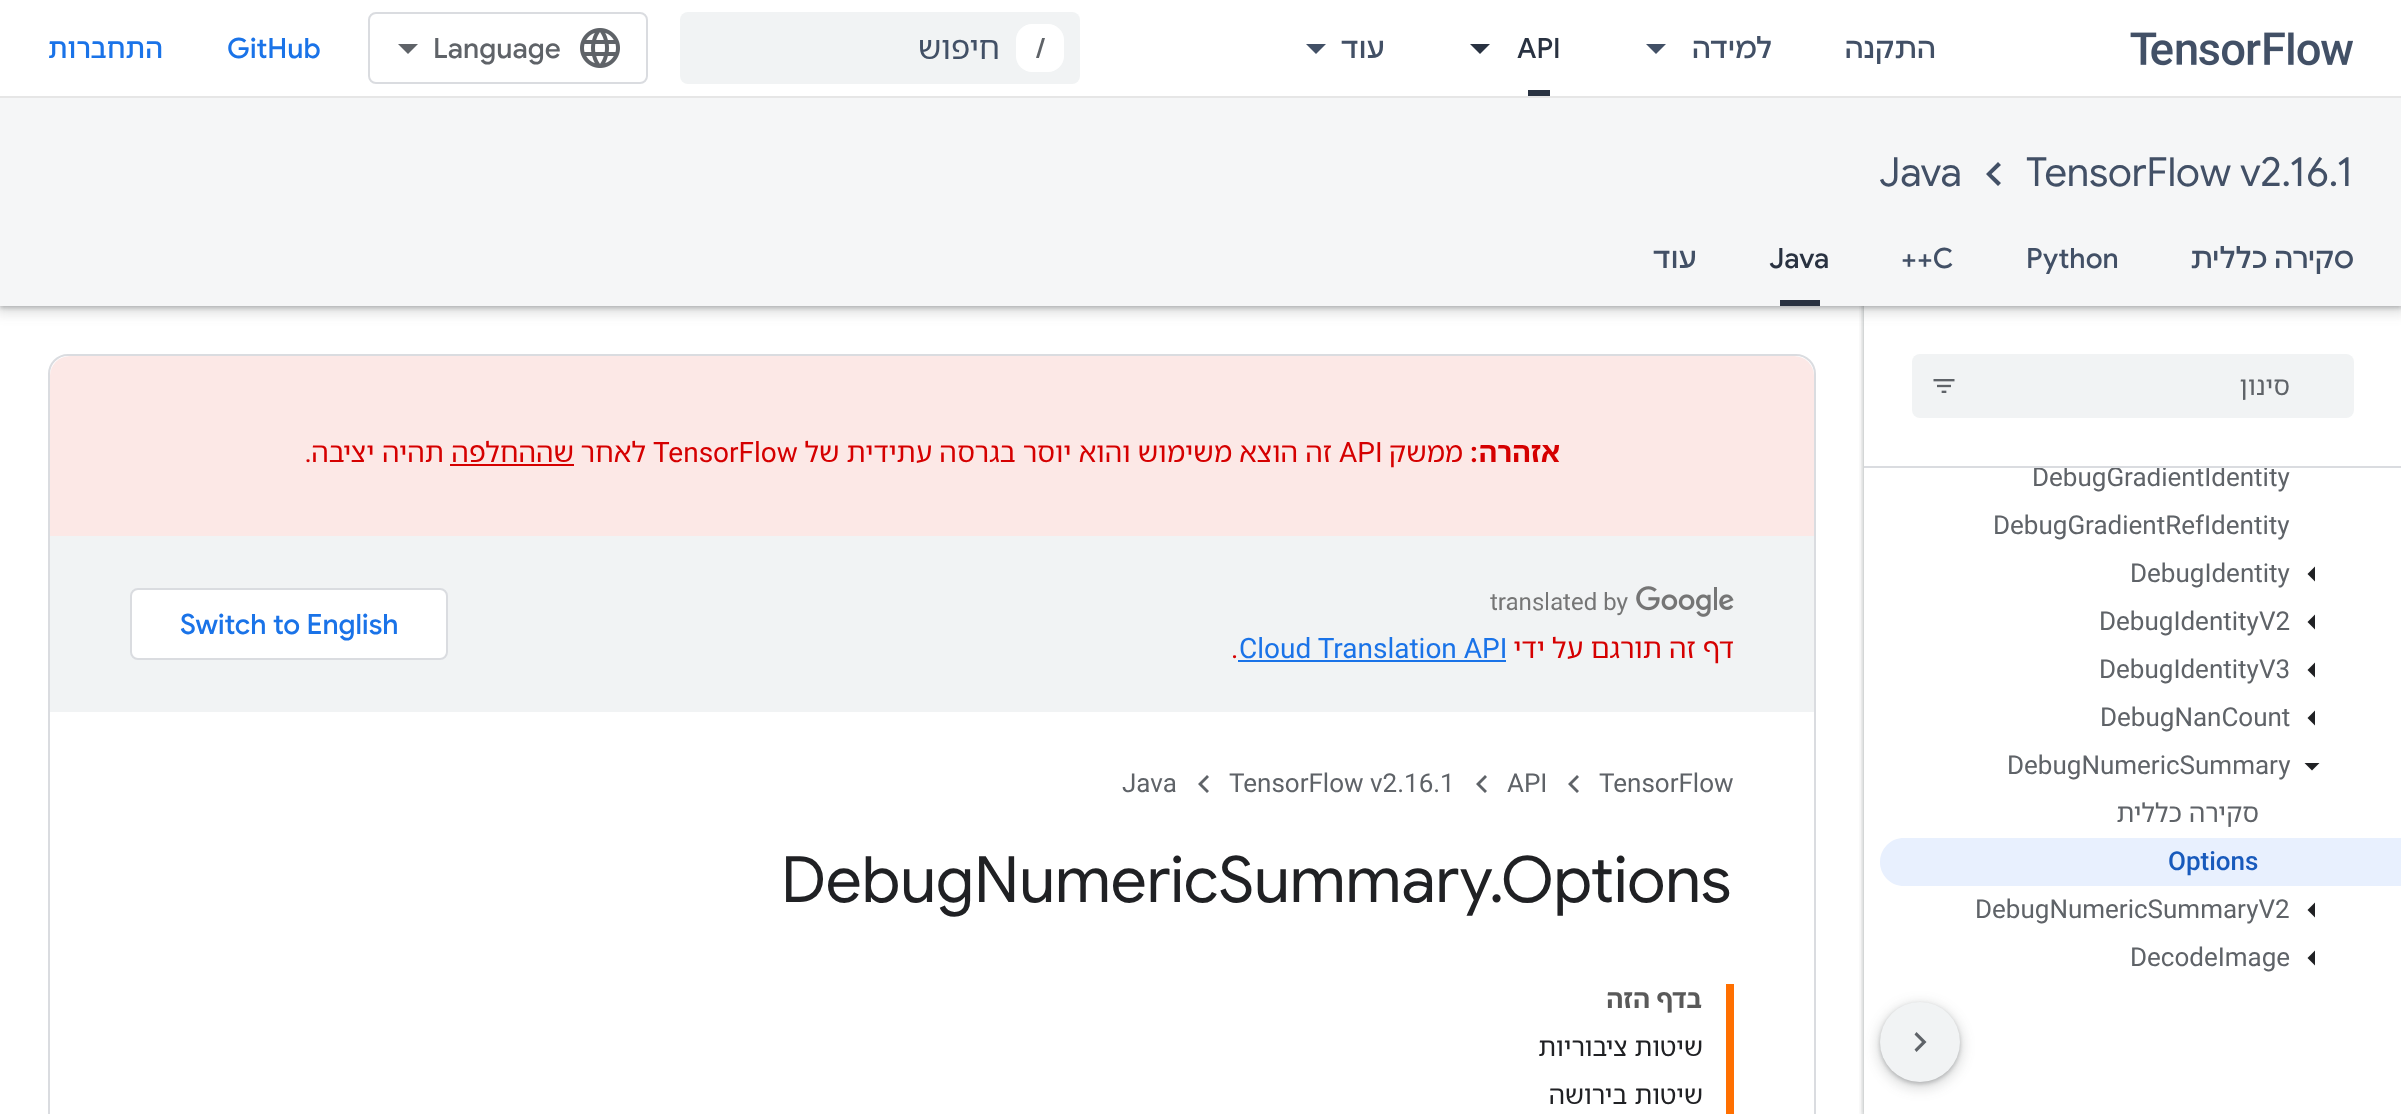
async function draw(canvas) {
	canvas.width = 2401;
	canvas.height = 1114;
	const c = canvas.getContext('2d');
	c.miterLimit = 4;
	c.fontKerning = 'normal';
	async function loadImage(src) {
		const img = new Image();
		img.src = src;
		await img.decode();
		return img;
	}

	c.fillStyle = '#fff';
	c.fillRect(0, 0, 2401, 1114);
	c.save();
	c.beginPath();
	c.rect(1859, 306, 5, 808);
	c.clip();
	c.fillStyle = '#3c404326';
	c.filter = 'blur(3px)';
	c.beginPath();
	c.rect(1862, 0, 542, 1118);
	c.fill();
	c.filter = 'none';
	c.restore();
	c.save();
	c.beginPath();
	c.rect(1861, 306, 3, 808);
	c.clip();
	c.fillStyle = '#3c40434d';
	c.filter = 'blur(2px)';
	c.beginPath();
	c.rect(1864, 2, 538, 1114);
	c.fill();
	c.filter = 'none';
	c.restore();
	c.fillStyle = '#3c404326';
	c.filter = 'blur(6px)';
	c.beginPath();
	c.rect(-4, 98, 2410, 216);
	c.fill();
	c.filter = 'none';
	c.fillStyle = '#3c40434d';
	c.filter = 'blur(2px)';
	c.beginPath();
	c.rect(0, 100, 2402, 208);
	c.fill();
	c.filter = 'none';
	c.fillStyle = '#fff';
	c.fillRect(0, 0, 2401, 96);
	c.fillStyle = '#e6e6e6';
	c.fillRect(0, 96, 2401, 2);
	c.direction = 'rtl';
	c.font = '500 28px Noto Sans Hebrew';
	c.fillStyle = '#1a73e8';
	c.fillText('התחברות', 163, 58);
	c.direction = 'ltr';
	c.font = '500 28px Google Sans';
	c.fillText('GitHub', 227, 58);
	c.beginPath();
	c.roundRect(369, 13, 278, 70, 7);
	c.strokeStyle = '#dadce0';
	c.lineWidth = 2;
	c.stroke();
	c.fillStyle = '#5f6368';
	c.beginPath();
	c.moveTo(408, 54);
	c.lineTo(398, 44);
	c.lineTo(418, 44);
	c.closePath();
	c.fill();
	c.fillText('Language', 433, 58);
	c.drawImage(await loadImage('img1.png'), 580, 28, 40, 40);
	c.fillStyle = '#f1f3f4';
	c.beginPath();
	c.roundRect(680, 12, 400, 72, 8);
	c.fill();
	c.direction = 'rtl';
	c.font = '32px Noto Sans Hebrew';
	c.fillStyle = '#425066';
	c.fillText('חיפוש', 1000, 59);
	c.fillStyle = '#fff';
	c.beginPath();
	c.roundRect(1016, 24, 48, 48, 16);
	c.fill();
	c.direction = 'ltr';
	c.font = '500 28px Google Sans';
	c.fillStyle = '#5f6368';
	c.fillText('/', 1036, 58);
	c.fillStyle = '#425066';
	c.beginPath();
	c.moveTo(1306, 44);
	c.lineTo(1326, 44);
	c.lineTo(1316, 54);
	c.closePath();
	c.fill();
	c.direction = 'rtl';
	c.fillText('עוד', 1385, 58);
	c.fillStyle = '#293241';
	c.beginPath();
	c.moveTo(1470, 44);
	c.lineTo(1490, 44);
	c.lineTo(1480, 54);
	c.closePath();
	c.fill();
	c.direction = 'ltr';
	c.fillText('API', 1517, 58);
	c.fillRect(1528, 90, 22, 6);
	c.fillStyle = '#425066';
	c.beginPath();
	c.moveTo(1646, 44);
	c.lineTo(1666, 44);
	c.lineTo(1656, 54);
	c.closePath();
	c.fill();
	c.direction = 'rtl';
	c.fillText('למידה', 1772, 58);
	c.fillText('התקנה', 1936, 58);
	c.drawImage(await loadImage('img2.png'), 2130, 32, 223, 34);
	c.fillStyle = '#f5f6f7';
	c.fillRect(0, 98, 2401, 208);
	c.direction = 'ltr';
	c.font = '40px Google Sans';
	c.fillStyle = '#425066';
	c.fillText('Java', 1879, 186);
	c.beginPath();
	c.moveTo(2001, 165);
	c.lineTo(1991.5, 174);
	c.lineTo(2001, 183);
	c.lineTo(1998, 186);
	c.lineTo(1986, 174);
	c.lineTo(1998, 162);
	c.closePath();
	c.fill();
	c.fillText('TensorFlow v2.16.1', 2026, 186);
	c.direction = 'rtl';
	c.font = '500 28px Google Sans';
	c.fillText('עוד', 1697, 268);
	c.direction = 'ltr';
	c.fillStyle = '#293241';
	c.fillText('Java', 1769, 268);
	c.fillRect(1780, 300, 40, 6);
	c.fillStyle = '#425066';
	c.fillText('++C', 1901, 268);
	c.fillText('Python', 2026, 268);
	c.direction = 'rtl';
	c.fillText('סקירה כללית', 2354, 268);
	c.beginPath();
	c.roundRect(49, 355, 1766, 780, 19);
	c.stroke();
	c.fillStyle = '#fce8e6';
	c.beginPath();
	c.roundRect(50, 356, 1764, 180, [20, 20, 0, 0]);
	c.fill();
	c.font = '28px Roboto';
	c.fillStyle = '#d50000';
	c.fillText('.', 312, 462);
	c.font = '28px Noto Sans Hebrew';
	c.fillText('תהיה יציבה', 444, 462);
	c.fillText('שההחלפה', 574, 462);
	c.fillRect(450, 464, 124, 2);
	c.fillText('לאחר', 646, 462);
	c.direction = 'ltr';
	c.font = '28px Roboto';
	c.fillText('TensorFlow', 653, 462);
	c.wordSpacing = '-0.5px';
	c.direction = 'rtl';
	c.font = '28px Noto Sans Hebrew';
	c.fillText('זה הוצא משימוש והוא יוסר בגרסה עתידית של', 1332, 462);
	c.wordSpacing = '0px';
	c.direction = 'ltr';
	c.font = '28px Roboto';
	c.fillText('API', 1339, 462);
	c.direction = 'rtl';
	c.font = '28px Noto Sans Hebrew';
	c.fillText('ממשק', 1463, 462);
	c.font = 'bold 28px Roboto';
	c.fillText(':', 1478, 462);
	c.font = 'bold 28px Noto Sans Hebrew';
	c.fillText('אזהרה', 1560, 462);
	c.fillStyle = '#f1f3f4';
	c.fillRect(50, 536, 1764, 176);
	c.fillStyle = '#fff';
	c.beginPath();
	c.roundRect(131, 589, 316, 70, 7);
	c.fill();
	c.stroke();
	c.direction = 'ltr';
	c.font = '500 28px Google Sans';
	c.fillStyle = '#1a73e8';
	c.fillText('Switch to English', 180, 634);
	c.drawImage(await loadImage('img3.png'), 1490, 586, 244, 31);
	c.font = '28px Roboto';
	c.fillStyle = '#d50000';
	c.fillText('.', 1231, 658);
	c.fillStyle = '#1a73e8';
	c.fillText('Cloud Translation API', 1239, 658);
	c.fillRect(1238, 660, 268, 2);
	c.wordSpacing = '-0.5px';
	c.direction = 'rtl';
	c.font = '28px Noto Sans Hebrew';
	c.fillStyle = '#d50000';
	c.fillText('דף זה תורגם על ידי', 1734, 658);
	c.wordSpacing = '0px';
	c.direction = 'ltr';
	c.font = '26px Roboto';
	c.fillStyle = '#5f6368';
	c.fillText('Java', 1122, 792);
	c.beginPath();
	c.moveTo(1209, 777);
	c.lineTo(1202, 784);
	c.lineTo(1209, 791);
	c.lineTo(1207, 793);
	c.lineTo(1198, 784);
	c.lineTo(1207, 775);
	c.closePath();
	c.fill();
	c.fillText('TensorFlow v2.16.1', 1229, 792);
	c.beginPath();
	c.moveTo(1487, 777);
	c.lineTo(1480, 784);
	c.lineTo(1487, 791);
	c.lineTo(1485, 793);
	c.lineTo(1476, 784);
	c.lineTo(1485, 775);
	c.closePath();
	c.fill();
	c.fillText('API', 1507, 792);
	c.beginPath();
	c.moveTo(1579, 777);
	c.lineTo(1572, 784);
	c.lineTo(1579, 791);
	c.lineTo(1577, 793);
	c.lineTo(1568, 784);
	c.lineTo(1577, 775);
	c.closePath();
	c.fill();
	c.fillText('TensorFlow', 1599, 792);
	c.font = '64px Google Sans';
	c.fillStyle = '#202124';
	c.fillText('DebugNumericSummary', 781, 902);
	c.fillText('.Options', 1489, 902);
	c.fillStyle = '#ff6f00';
	c.fillRect(1726, 984, 8, 130);
	c.wordSpacing = '-1px';
	c.direction = 'rtl';
	c.font = 'bold 26px Noto Sans Hebrew';
	c.fillStyle = '#595959';
	c.fillText('בדף הזה', 1702, 1008);
	c.wordSpacing = '0px';
	c.font = '26px Noto Sans Hebrew';
	c.fillStyle = '#202124';
	c.fillText('שיטות ציבוריות', 1703, 1056);
	c.fillText('שיטות בירושה', 1703, 1104);
	c.fillStyle = '#3c404326';
	c.filter = 'blur(6px)';
	c.beginPath();
	c.roundRect(1876, 1002, 88, 88, 44);
	c.fill();
	c.filter = 'none';
	c.fillStyle = '#3c40434d';
	c.filter = 'blur(2px)';
	c.beginPath();
	c.roundRect(1880, 1004, 80, 80, 40);
	c.fill();
	c.filter = 'none';
	c.fillStyle = '#f1f3f4';
	c.beginPath();
	c.arc(1920, 1042, 40, 0, 2 * Math.PI);
	c.fill();
	c.fillStyle = '#5f6368';
	c.beginPath();
	c.moveTo(1916.5, 1032);
	c.lineTo(1926.5, 1042);
	c.lineTo(1916.5, 1052);
	c.lineTo(1914.5, 1049.5);
	c.lineTo(1922, 1042);
	c.lineTo(1914.5, 1034.5);
	c.closePath();
	c.fill();
	c.direction = 'ltr';
	c.font = '26px Roboto';
	c.fillText('DebugGradientIdentity', 2032, 486);
	c.fillStyle = '#dadce0';
	c.fillRect(1864, 466, 537, 2);
	c.fillStyle = '#f1f3f4';
	c.beginPath();
	c.roundRect(1912, 354, 442, 64, 8);
	c.fill();
	c.drawImage(await loadImage('img4.png'), 1933, 379, 22, 14);
	c.direction = 'rtl';
	c.font = '26px Noto Sans Hebrew';
	c.fillStyle = '#5f6368';
	c.fillText('סינון', 2290, 395);
	c.direction = 'ltr';
	c.font = '26px Roboto';
	c.fillText('DebugGradientRefIdentity', 1993, 534);
	c.fillText('DebugIdentity', 2130, 582);
	c.fillStyle = '#202124';
	c.beginPath();
	c.moveTo(2315, 566.5);
	c.lineTo(2315, 581.5);
	c.lineTo(2307.5, 574);
	c.closePath();
	c.fill();
	c.fillStyle = '#5f6368';
	c.fillText('DebugIdentityV2', 2099, 630);
	c.fillStyle = '#202124';
	c.beginPath();
	c.moveTo(2315, 614.5);
	c.lineTo(2315, 629.5);
	c.lineTo(2307.5, 622);
	c.closePath();
	c.fill();
	c.fillStyle = '#5f6368';
	c.fillText('DebugIdentityV3', 2099, 678);
	c.fillStyle = '#202124';
	c.beginPath();
	c.moveTo(2315, 662.5);
	c.lineTo(2315, 677.5);
	c.lineTo(2307.5, 670);
	c.closePath();
	c.fill();
	c.fillStyle = '#5f6368';
	c.fillText('DebugNanCount', 2100, 726);
	c.fillStyle = '#202124';
	c.beginPath();
	c.moveTo(2315, 710.5);
	c.lineTo(2315, 725.5);
	c.lineTo(2307.5, 718);
	c.closePath();
	c.fill();
	c.fillStyle = '#5f6368';
	c.fillText('DebugNumericSummary', 2007, 774);
	c.fillStyle = '#202124';
	c.beginPath();
	c.moveTo(2304.5, 763);
	c.lineTo(2319.5, 763);
	c.lineTo(2312, 770.5);
	c.closePath();
	c.fill();
	c.direction = 'rtl';
	c.font = '26px Noto Sans Hebrew';
	c.fillStyle = '#5f6368';
	c.fillText('סקירה כללית', 2259, 822);
	c.fillStyle = '#e8f0fe';
	c.beginPath();
	c.moveTo(1904, 838);
	c.lineTo(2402, 838);
	c.lineTo(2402, 886);
	c.lineTo(1904, 886);
	c.bezierCurveTo(1890.5, 886, 1880, 875.5, 1880, 862);
	c.bezierCurveTo(1880, 848.5, 1890.5, 838, 1904, 838);
	c.closePath();
	c.fill();
	c.direction = 'ltr';
	c.font = '500 26px Roboto';
	c.fillStyle = '#185abc';
	c.fillText('Options', 2168, 870);
	c.font = '26px Roboto';
	c.fillStyle = '#5f6368';
	c.fillText('DebugNumericSummaryV2', 1975, 918);
	c.fillStyle = '#202124';
	c.beginPath();
	c.moveTo(2315, 902.5);
	c.lineTo(2315, 917.5);
	c.lineTo(2307.5, 910);
	c.closePath();
	c.fill();
	c.fillStyle = '#5f6368';
	c.fillText('DecodeImage', 2130, 966);
	c.fillStyle = '#202124';
	c.beginPath();
	c.moveTo(2315, 950.5);
	c.lineTo(2315, 965.5);
	c.lineTo(2307.5, 958);
	c.closePath();
	c.fill();
}

draw(document.querySelector('canvas'));
